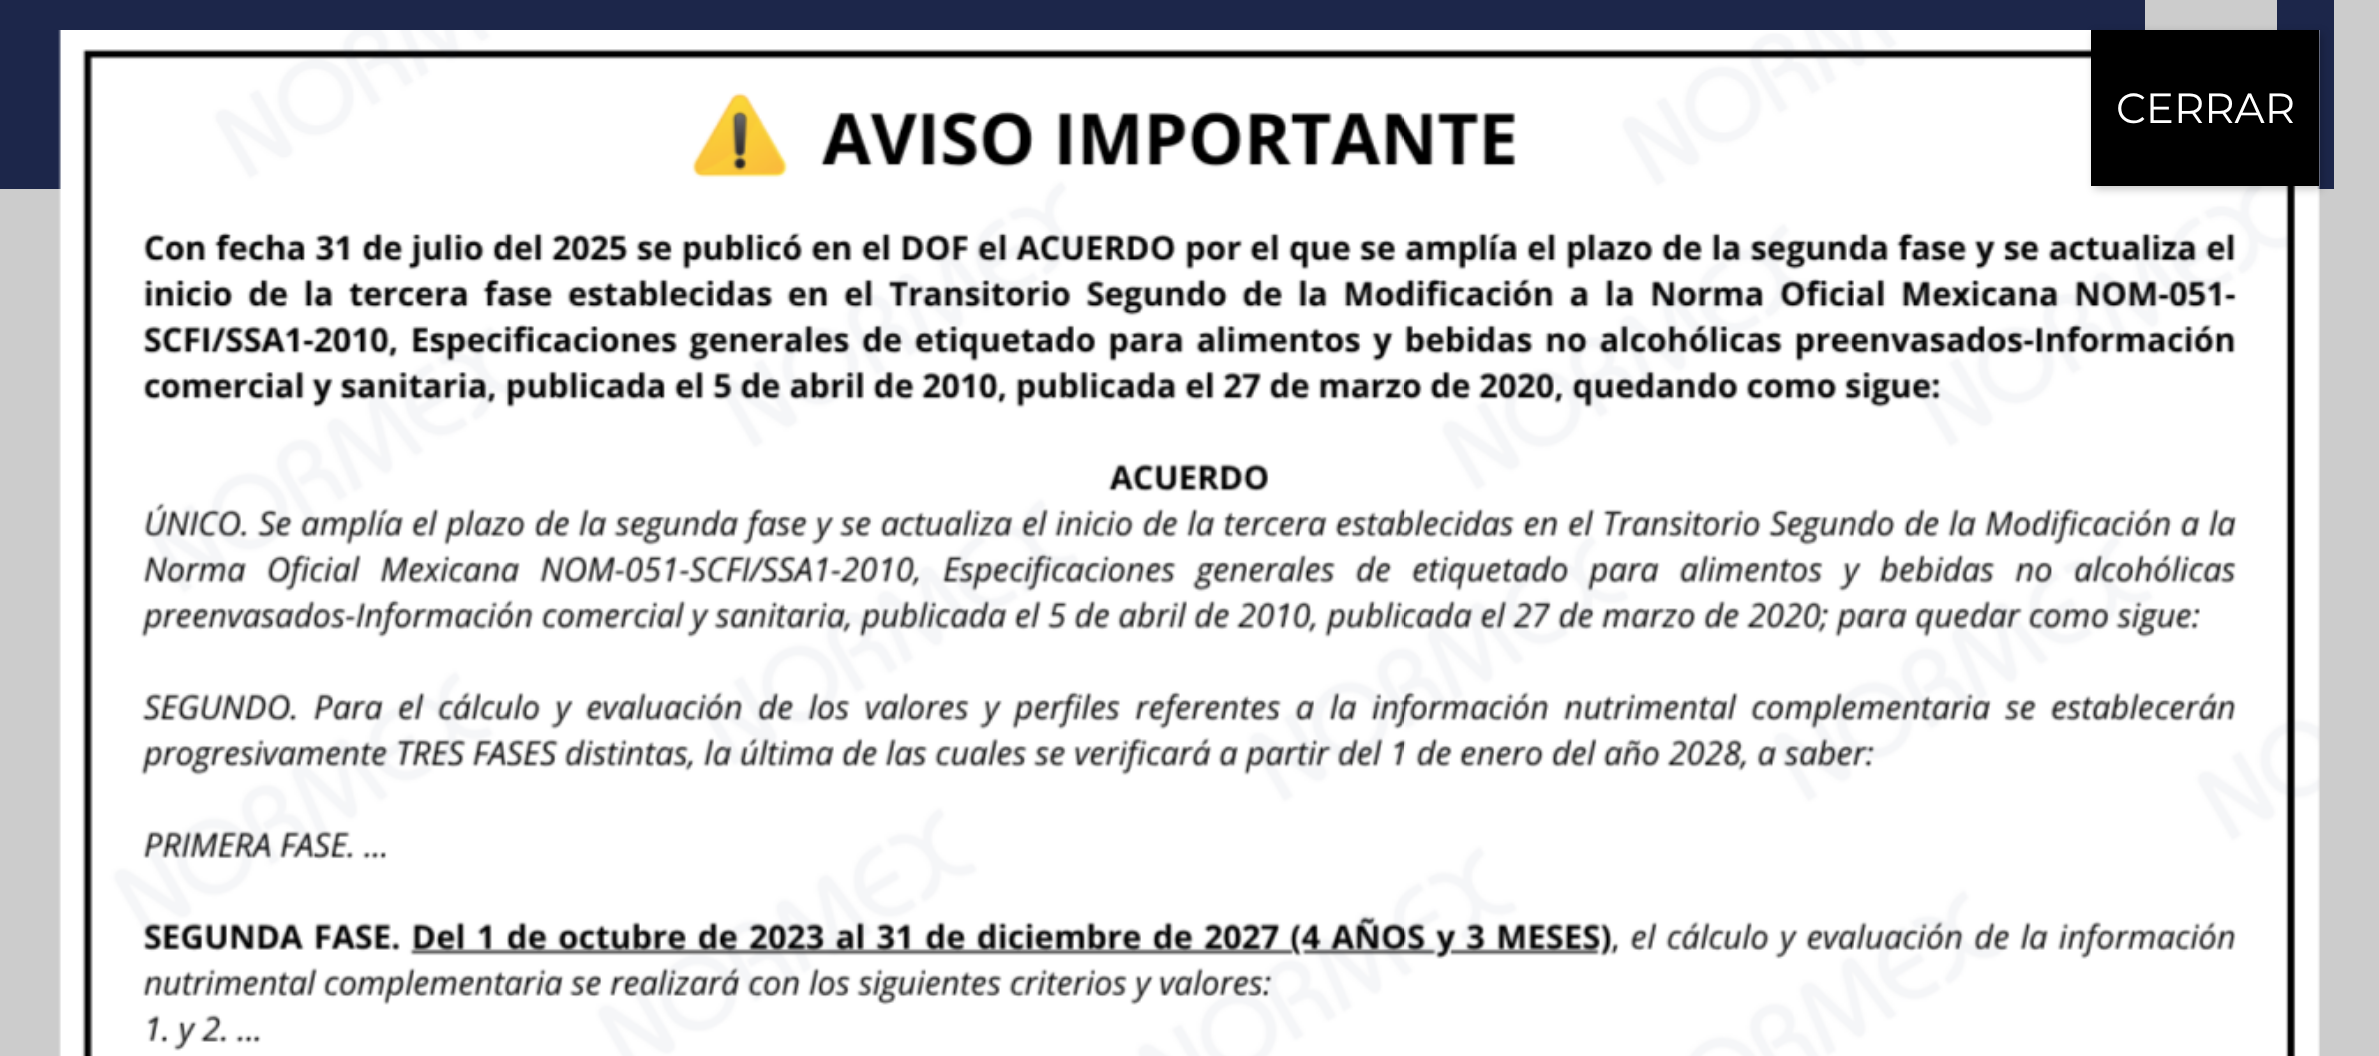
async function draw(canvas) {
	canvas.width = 2379;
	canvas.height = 1056;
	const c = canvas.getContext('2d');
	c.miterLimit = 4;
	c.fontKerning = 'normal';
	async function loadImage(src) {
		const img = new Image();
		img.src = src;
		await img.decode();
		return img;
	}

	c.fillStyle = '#ccc';
	c.fillRect(0, 0, 2379, 1056);
	c.fillStyle = '#1c264a';
	c.fillRect(0, 0, 2334, 189);
	c.fillStyle = '#ccc';
	c.fillRect(2145, 0, 132, 30);
	c.drawImage(await loadImage('img1.png'), 58, 30, 2262, 1026);
	c.fillStyle = '#0202023b';
	c.filter = 'blur(4.5px)';
	c.beginPath();
	c.rect(2094, 33, 228, 156);
	c.fill();
	c.filter = 'none';
	c.fillStyle = '#000';
	c.fillRect(2091, 30, 228, 156);
	c.font = '100 42px Montserrat';
	c.fillStyle = '#fff';
	c.fillText('CERRAR', 2116, 123);
}

draw(document.querySelector('canvas'));
